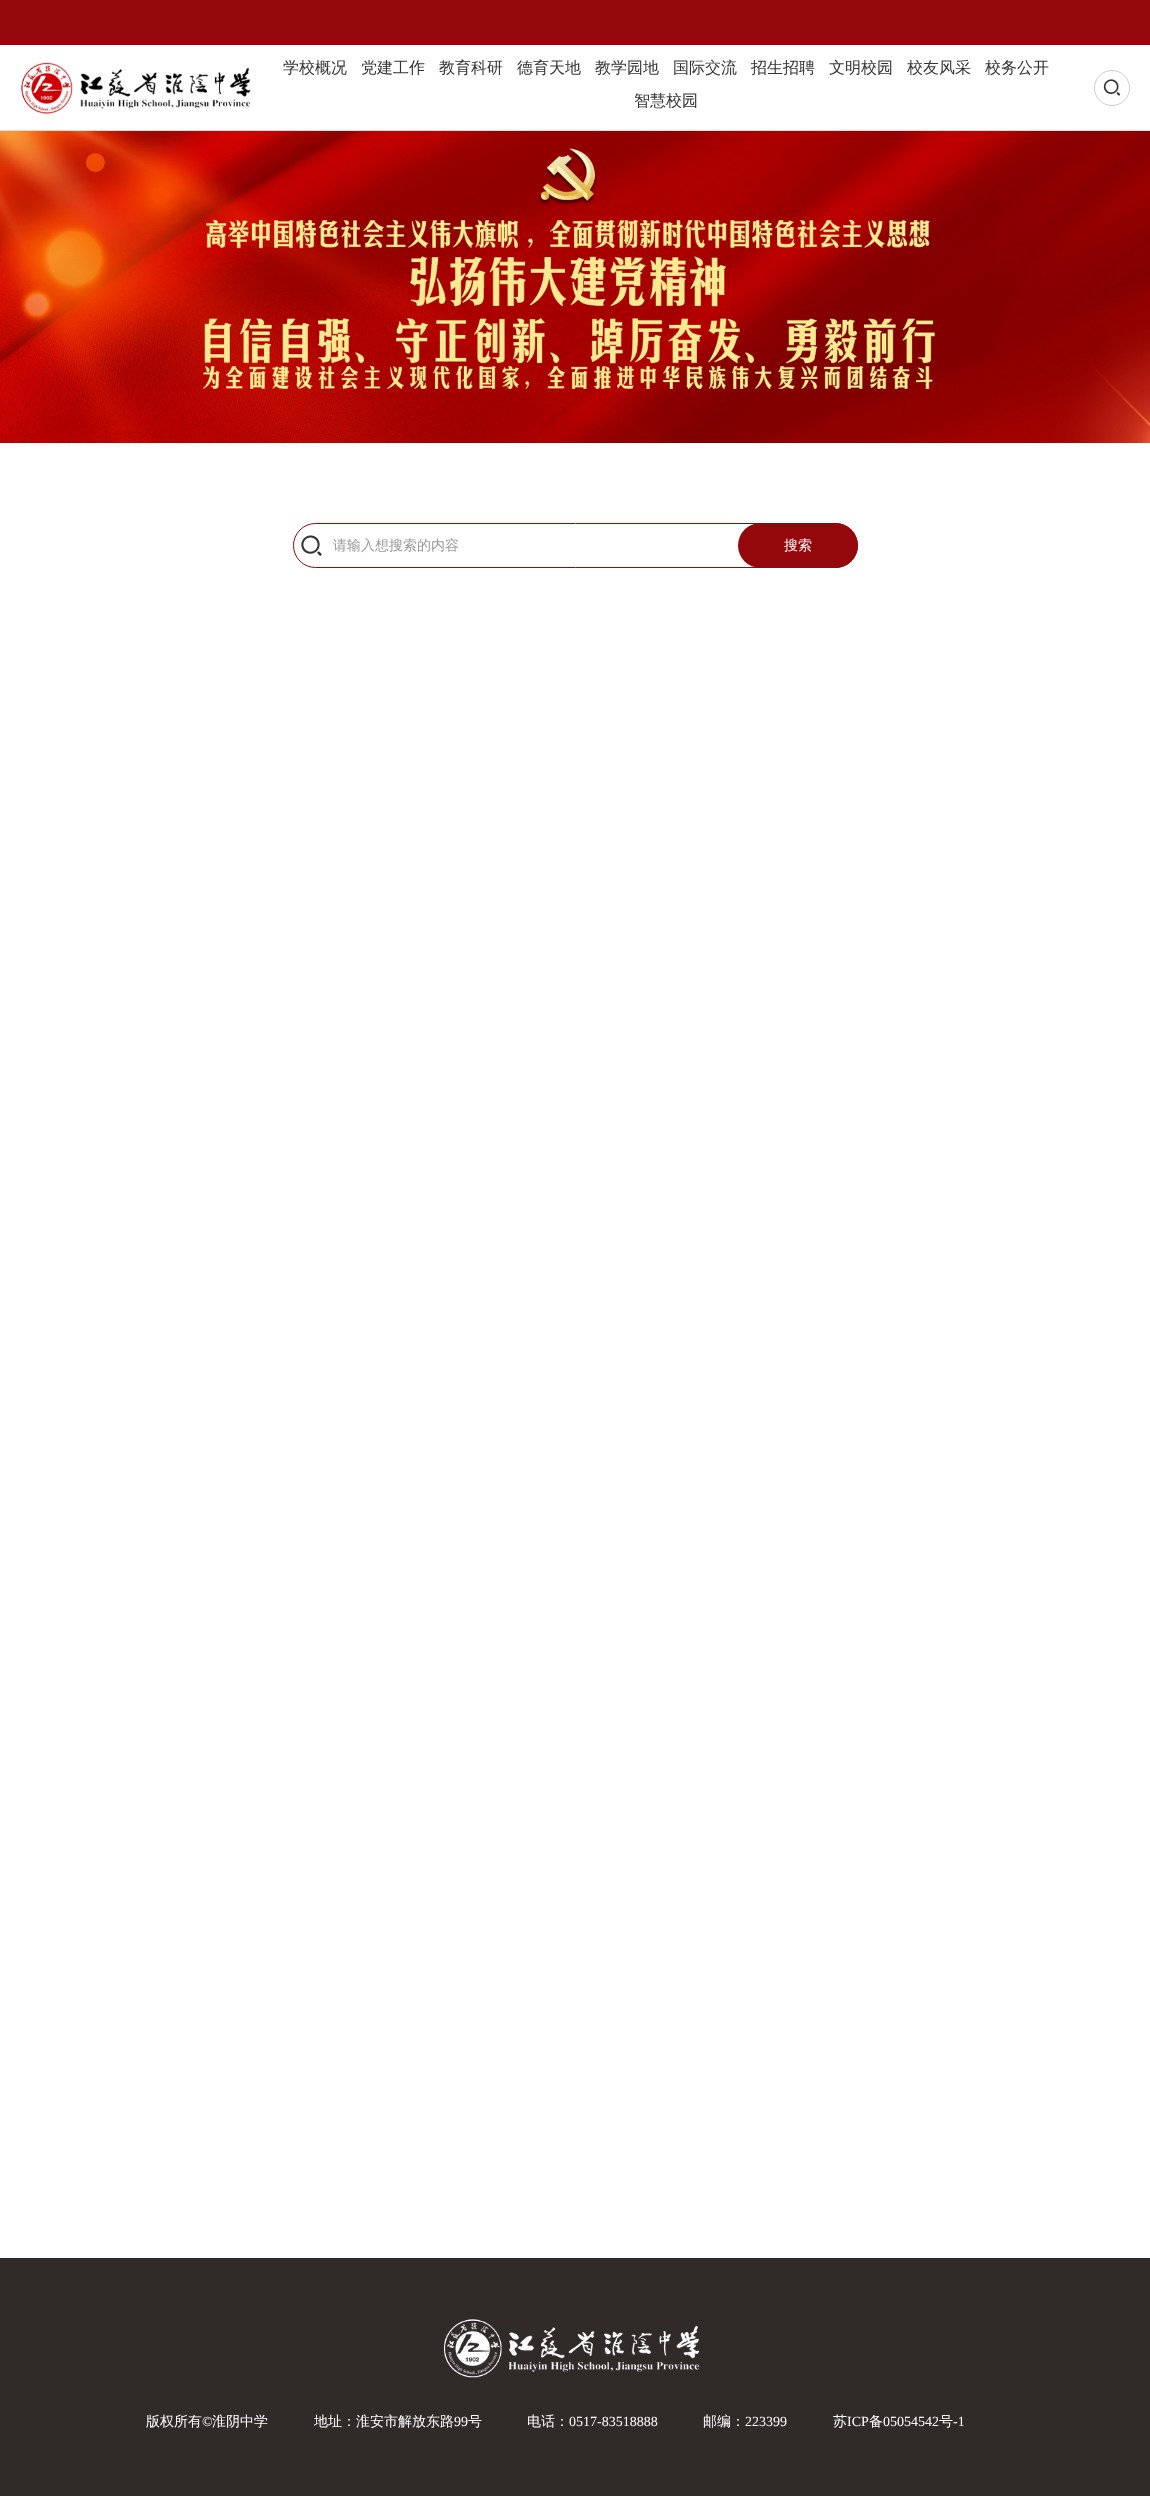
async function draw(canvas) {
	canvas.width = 1150;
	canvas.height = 2496;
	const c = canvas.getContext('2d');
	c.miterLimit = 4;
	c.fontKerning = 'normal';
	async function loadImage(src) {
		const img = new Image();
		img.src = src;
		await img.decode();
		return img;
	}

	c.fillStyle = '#fff';
	c.fillRect(0, 0, 1150, 2496);
	c.fillStyle = '#94070a';
	c.fillRect(0, 0, 1150, 45);
	c.fillStyle = '#ddd';
	c.fillRect(0, 130, 1150, 1);
	c.drawImage(await loadImage('img1.png'), 21, 62, 230, 52);
	c.font = '500 16px WenQuanYi Zen Hei';
	c.fillStyle = '#333';
	for (const [text, x, y] of [
		['学校概况', 283, 73],
		['党建工作', 361, 73],
		['教育科研', 439, 73],
		['德育天地', 517, 73],
		['教学园地', 595, 73],
		['国际交流', 673, 73],
		['招生招聘', 751, 73],
		['文明校园', 829, 73],
		['校友风采', 907, 73],
		['校务公开', 985, 73],
		['智慧校园', 634, 106],
	]) {
		c.fillText(text, x, y);
	}
	c.beginPath();
	c.arc(1112, 88, 17.5, 0, 2 * Math.PI);
	c.strokeStyle = '#ccc';
	c.stroke();
	c.drawImage(await loadImage('img2.png'), 1103, 79, 18, 17);
	c.drawImage(await loadImage('img3.png'), 0, 131, 1150, 312);
	c.beginPath();
	c.roundRect(293.5, 523.5, 564, 44, 22);
	c.strokeStyle = '#94070a';
	c.stroke();
	c.drawImage(await loadImage('img4.png'), 301, 535, 21, 21);
	c.font = '500 14px WenQuanYi Zen Hei';
	c.fillStyle = '#999';
	c.fillText('请输入想搜索的内容', 333, 550);
	c.fillStyle = '#94070a';
	c.beginPath();
	c.roundRect(738, 523, 120, 45, 22.5);
	c.fill();
	c.fillStyle = '#fff';
	c.fillText('搜索', 784, 550);
	c.fillStyle = '#302a29';
	c.fillRect(0, 2258, 1150, 238);
	c.drawImage(await loadImage('img5.png'), 444, 2319, 256, 59);
	c.fillStyle = '#fff';
	c.fillText('版权所有', 146, 2426);
	c.font = '14px Liberation Serif';
	c.fillText('©', 202, 2426);
	c.font = '500 14px WenQuanYi Zen Hei';
	c.fillText('淮阴中学', 212, 2426);
	c.fillText('地址：淮安市解放东路', 314, 2426);
	c.font = '14px Liberation Serif';
	c.fillText('99', 454, 2426);
	c.font = '500 14px WenQuanYi Zen Hei';
	c.fillText('号', 468, 2426);
	c.fillText('电话：', 527, 2426);
	c.font = '14px Liberation Serif';
	c.fillText('0517-83518888', 569, 2426);
	c.font = '500 14px WenQuanYi Zen Hei';
	c.fillText('邮编：', 703, 2426);
	c.font = '14px Liberation Serif';
	c.fillText('223399', 745, 2426);
	c.font = '500 14px WenQuanYi Zen Hei';
	c.fillText('苏', 833, 2426);
	c.font = '14px Liberation Serif';
	c.fillText('ICP', 847, 2426);
	c.font = '500 14px WenQuanYi Zen Hei';
	c.fillText('备', 869, 2426);
	c.font = '14px Liberation Serif';
	c.fillText('05054542', 883, 2426);
	c.font = '500 14px WenQuanYi Zen Hei';
	c.fillText('号', 939, 2426);
	c.font = '14px Liberation Serif';
	c.fillText('-1', 953, 2426);
}

draw(document.querySelector('canvas'));
